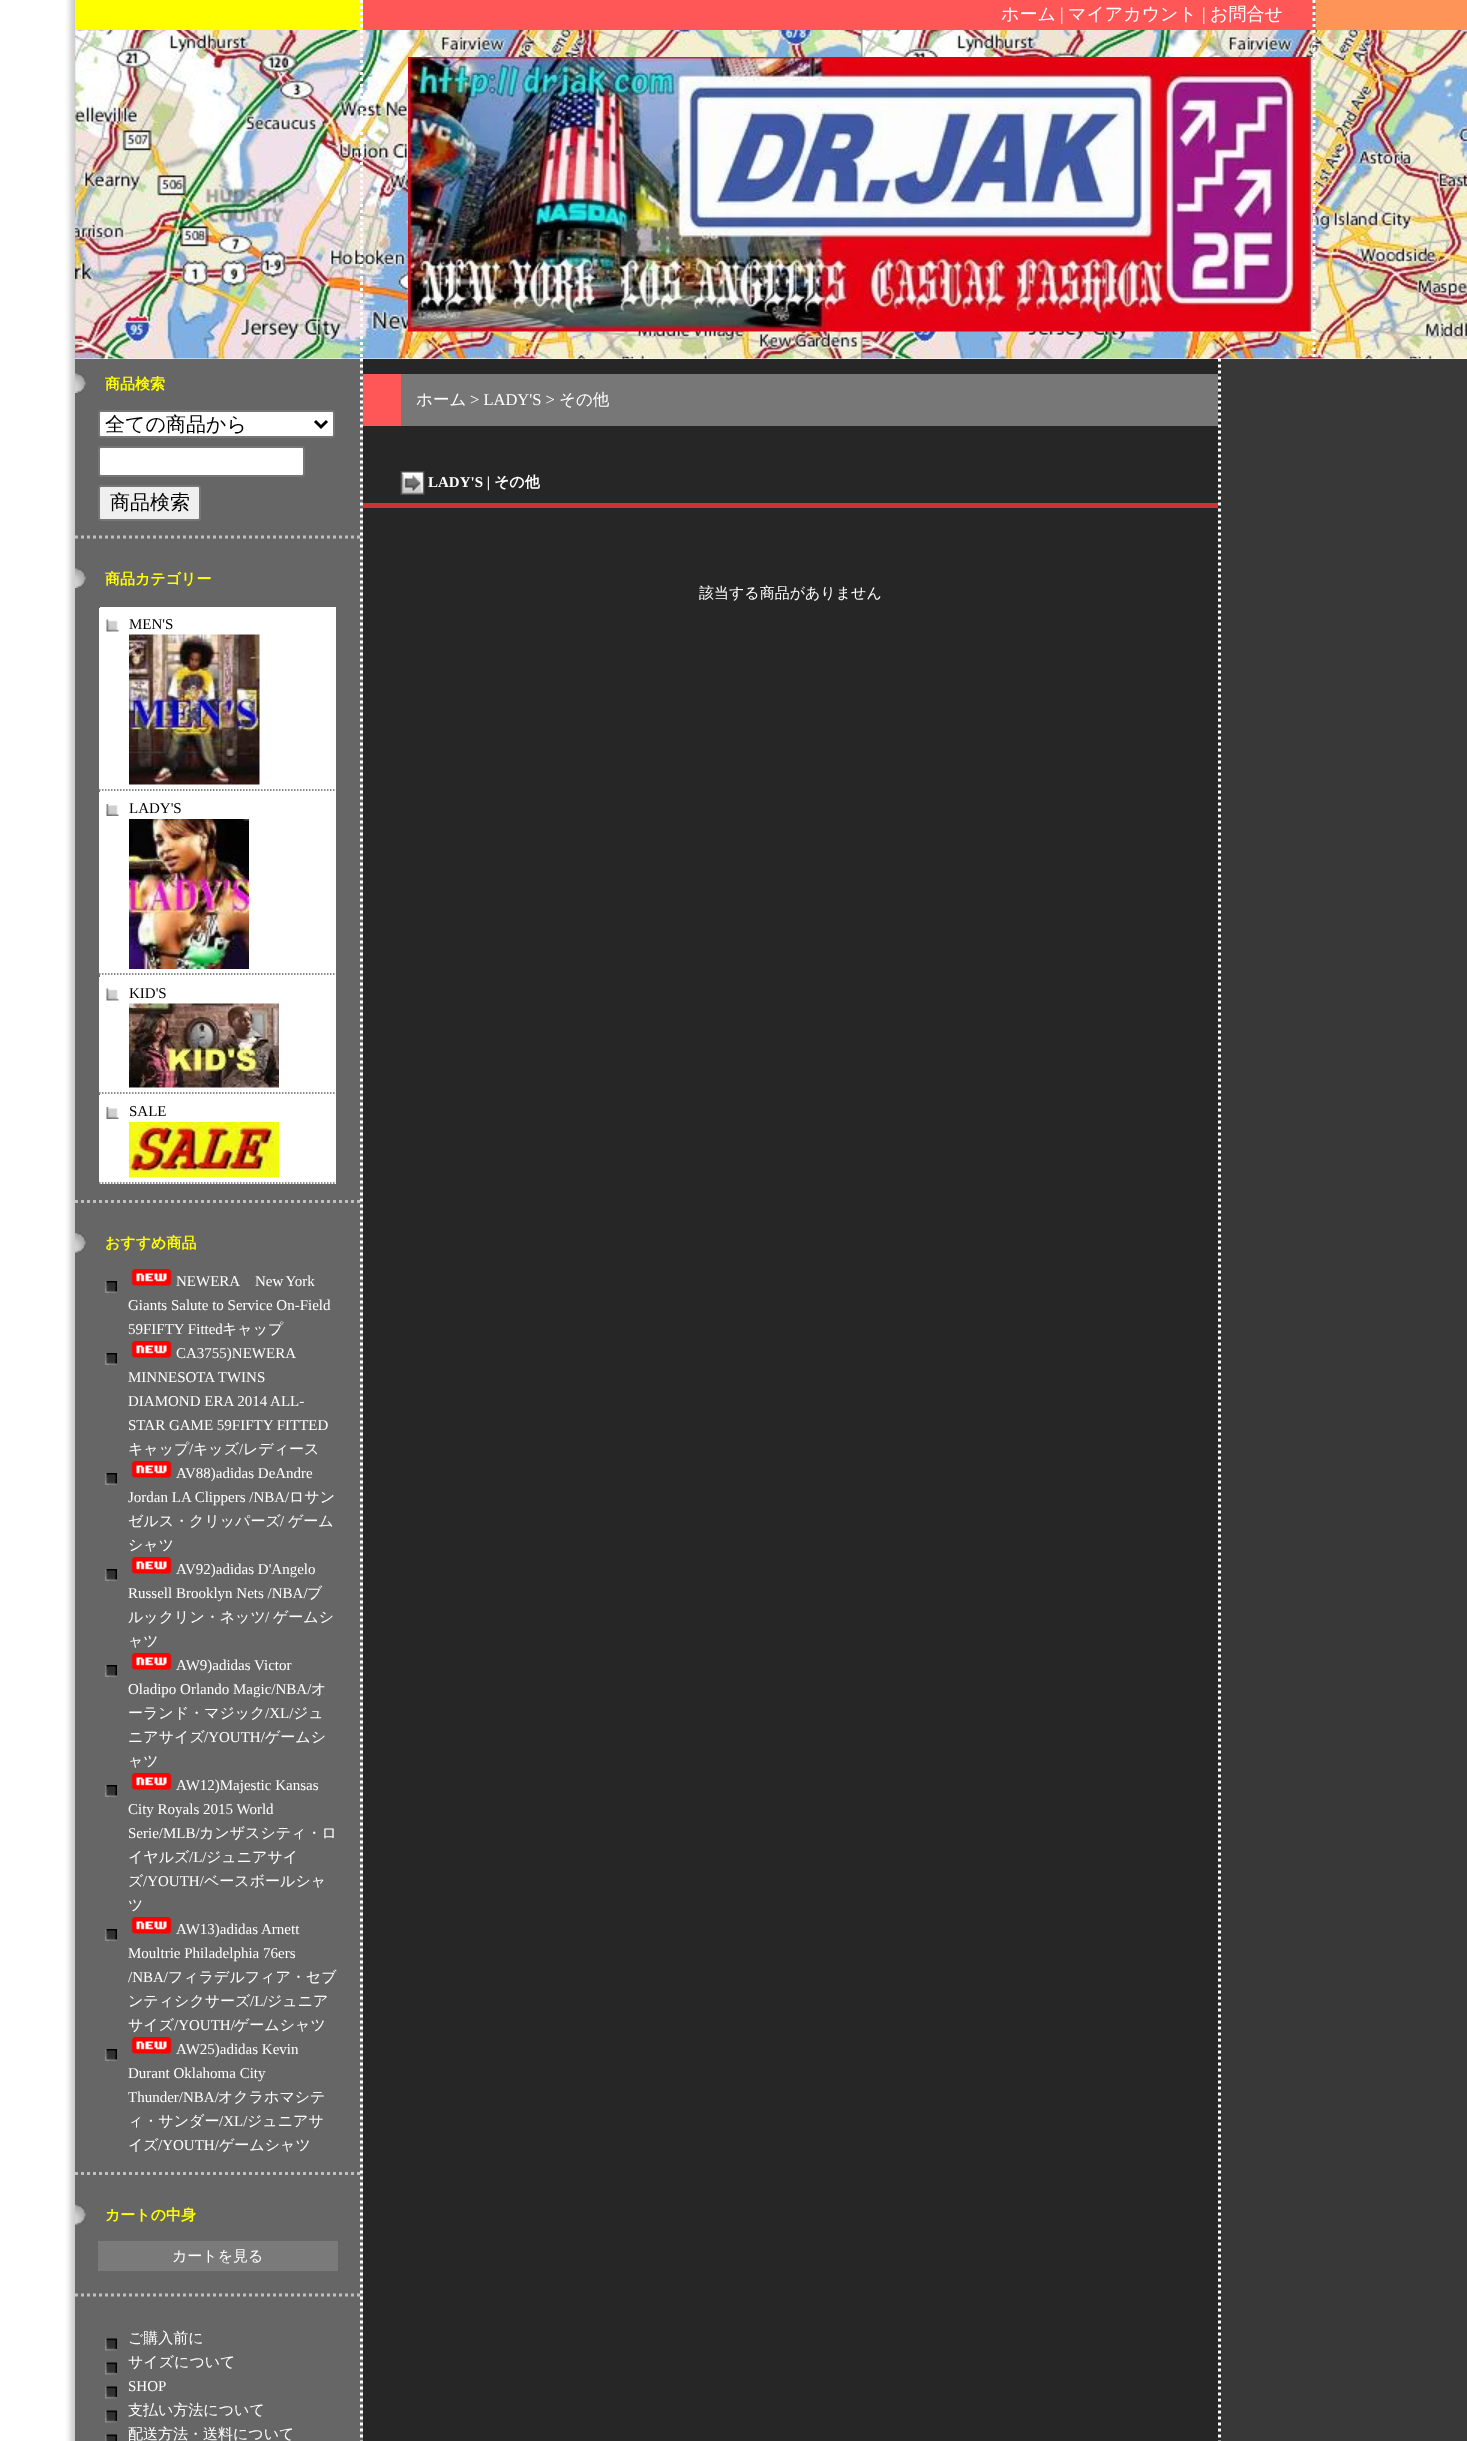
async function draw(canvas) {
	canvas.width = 1467;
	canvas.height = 2441;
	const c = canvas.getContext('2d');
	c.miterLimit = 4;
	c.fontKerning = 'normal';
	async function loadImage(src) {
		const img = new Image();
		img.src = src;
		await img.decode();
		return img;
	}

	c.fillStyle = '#fff';
	c.fillRect(0, 0, 1467, 2441);
	c.drawImage(await loadImage('img1.png'), 66, 0, 9, 2441);
	c.drawImage(await loadImage('img2.png'), 75, 30, 1392, 329);
	c.fillStyle = '#ff0';
	c.fillRect(75, 0, 288, 30);
	c.beginPath();
	c.moveTo(361.5, 0);
	c.lineTo(361.5, 30);
	c.strokeStyle = '#fff';
	c.lineWidth = 3;
	c.setLineDash([3, 3]);
	c.stroke();
	c.fillStyle = '#ff5757';
	c.fillRect(363, 0, 953, 30);
	c.beginPath();
	c.moveTo(1314, 0);
	c.lineTo(1314, 30);
	c.stroke();
	c.font = '500 18px WenQuanYi Zen Hei';
	c.fillStyle = '#fff';
	c.fillText('ホーム', 1001, 20);
	c.font = '18px Liberation Serif';
	c.fillText('|', 1060, 20);
	c.font = '500 18px WenQuanYi Zen Hei';
	c.fillText('マイアカウント', 1068, 20);
	c.font = '18px Liberation Serif';
	c.fillText('|', 1202, 20);
	c.font = '500 18px WenQuanYi Zen Hei';
	c.fillText('お問合せ', 1210, 20);
	c.fillStyle = '#fe9457';
	c.fillRect(1316, 0, 151, 30);
	c.beginPath();
	c.moveTo(361.5, 30);
	c.lineTo(361.5, 358.5);
	c.stroke();
	c.beginPath();
	c.moveTo(1314, 30);
	c.lineTo(1314, 358.5);
	c.stroke();
	c.drawImage(await loadImage('img3.png'), 408, 57, 905, 275);
	c.fillStyle = '#666';
	c.fillRect(75, 359, 288, 2082);
	c.beginPath();
	c.moveTo(361.5, 358.5);
	c.lineTo(361.5, 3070.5);
	c.stroke();
	c.drawImage(await loadImage('img4.png'), 75, 373, 11, 20);
	c.font = 'bold 15px WenQuanYi Zen Hei';
	c.fillStyle = '#ff0';
	c.fillText('商品検索', 105, 389);
	c.beginPath();
	c.moveTo(75, 537);
	c.lineTo(360, 537);
	c.strokeStyle = '#c0c0c0';
	c.stroke();
	c.fillStyle = '#fff';
	c.beginPath();
	c.roundRect(99, 411, 235, 26, 2);
	c.fill();
	c.strokeStyle = '#767676';
	c.lineWidth = 2;
	c.setLineDash([]);
	c.stroke();
	c.beginPath();
	c.moveTo(315, 421);
	c.lineTo(321, 427);
	c.lineTo(327, 421);
	c.strokeStyle = '#000';
	c.lineWidth = 3;
	c.stroke();
	c.font = '500 20px WenQuanYi Zen Hei';
	c.fillStyle = '#000';
	c.fillText('全ての商品から', 105, 431);
	c.fillStyle = '#fff';
	c.beginPath();
	c.roundRect(99, 447, 205, 29, 2);
	c.fill();
	c.strokeStyle = '#767676';
	c.lineWidth = 2;
	c.stroke();
	c.fillStyle = '#efefef';
	c.beginPath();
	c.roundRect(99, 486, 101, 34, 2);
	c.fill();
	c.stroke();
	c.fillStyle = '#000';
	c.fillText('商品検索', 110, 509);
	c.drawImage(await loadImage('img4.png'), 75, 568, 11, 20);
	c.font = 'bold 15px WenQuanYi Zen Hei';
	c.fillStyle = '#ff0';
	c.fillText('商品カテゴリー', 105, 584);
	c.beginPath();
	c.moveTo(75, 1201.5);
	c.lineTo(360, 1201.5);
	c.strokeStyle = '#c0c0c0';
	c.lineWidth = 3;
	c.setLineDash([3, 3]);
	c.stroke();
	c.fillStyle = '#fff';
	c.fillRect(100, 607, 236, 488);
	c.fillRect(99, 608, 1, 183);
	c.drawImage(await loadImage('img5.png'), 106, 619, 13, 13);
	c.beginPath();
	c.moveTo(99, 790);
	c.lineTo(336, 790);
	c.strokeStyle = '#666';
	c.lineWidth = 1.5;
	c.setLineDash([1.5, 1.5]);
	c.stroke();
	c.font = '15px Liberation Serif';
	c.fillStyle = '#000';
	c.fillText('MEN\'S', 129, 629);
	c.drawImage(await loadImage('img6.png'), 129, 634, 131, 151);
	c.fillStyle = '#fff';
	c.fillRect(99, 792, 1, 183);
	c.drawImage(await loadImage('img7.png'), 106, 804, 13, 12);
	c.beginPath();
	c.moveTo(99, 974);
	c.lineTo(336, 974);
	c.stroke();
	c.fillStyle = '#000';
	c.fillText('LADY\'S', 129, 813);
	c.drawImage(await loadImage('img8.png'), 129, 819, 120, 150);
	c.fillStyle = '#fff';
	c.fillRect(99, 977, 1, 117);
	c.drawImage(await loadImage('img5.png'), 106, 988, 13, 13);
	c.beginPath();
	c.moveTo(99, 1093);
	c.lineTo(336, 1093);
	c.stroke();
	c.fillStyle = '#000';
	c.fillText('KID\'S', 129, 998);
	c.drawImage(await loadImage('img9.png'), 129, 1003, 150, 85);
	c.fillStyle = '#fff';
	c.fillRect(99, 1095, 237, 89);
	c.drawImage(await loadImage('img7.png'), 106, 1107, 13, 12);
	c.beginPath();
	c.moveTo(99, 1183);
	c.lineTo(336, 1183);
	c.stroke();
	c.fillStyle = '#000';
	c.fillText('SALE', 129, 1116);
	c.drawImage(await loadImage('img10.png'), 129, 1122, 150, 56);
	c.drawImage(await loadImage('img11.png'), 75, 1233, 11, 20);
	c.font = 'bold 15px WenQuanYi Zen Hei';
	c.fillStyle = '#ff0';
	c.fillText('おすすめ商品', 105, 1248);
	c.beginPath();
	c.moveTo(75, 2173.5);
	c.lineTo(360, 2173.5);
	c.strokeStyle = '#c0c0c0';
	c.lineWidth = 3;
	c.setLineDash([3, 3]);
	c.stroke();
	c.drawImage(await loadImage('img12.png'), 105, 1281, 12, 12);
	c.drawImage(await loadImage('img13.png'), 131, 1269, 41, 17);
	c.font = '15px Liberation Serif';
	c.fillStyle = '#fff';
	c.fillText('NEWERA', 176, 1286);
	c.wordSpacing = '-1px';
	c.fillText('New York', 255, 1286);
	c.wordSpacing = '0px';
	c.fillText('Giants Salute to Service On-Field', 128, 1310);
	c.fillText('59FIFTY Fitted', 128, 1334);
	c.font = '500 15px WenQuanYi Zen Hei';
	c.fillText('キャップ', 222, 1334);
	c.drawImage(await loadImage('img12.png'), 105, 1353, 12, 12);
	c.drawImage(await loadImage('img13.png'), 131, 1341, 41, 17);
	c.font = '15px Liberation Serif';
	for (const [text, x, y] of [
		['CA3755)NEWERA', 176, 1358],
		['MINNESOTA TWINS', 128, 1382],
		['DIAMOND ERA 2014 ALL-', 128, 1406],
		['STAR GAME 59FIFTY FITTED', 128, 1430],
	]) {
		c.fillText(text, x, y);
	}
	c.font = '500 15px WenQuanYi Zen Hei';
	c.fillText('キャップ', 128, 1454);
	c.font = '15px Liberation Serif';
	c.fillText('/', 189, 1454);
	c.font = '500 15px WenQuanYi Zen Hei';
	c.fillText('キッズ', 193, 1454);
	c.font = '15px Liberation Serif';
	c.fillText('/', 239, 1454);
	c.font = '500 15px WenQuanYi Zen Hei';
	c.fillText('レディース', 243, 1454);
	c.drawImage(await loadImage('img12.png'), 105, 1473, 12, 12);
	c.drawImage(await loadImage('img13.png'), 131, 1461, 41, 17);
	c.font = '15px Liberation Serif';
	c.fillText('AV88)adidas DeAndre', 176, 1478);
	c.fillText('Jordan LA Clippers /NBA/', 128, 1502);
	c.font = '500 15px WenQuanYi Zen Hei';
	c.fillText('ロサン', 289, 1502);
	c.fillText('ゼルス・クリッパーズ', 128, 1526);
	c.font = '15px Liberation Serif';
	c.fillText('/', 280, 1526);
	c.font = '500 15px WenQuanYi Zen Hei';
	c.fillText('ゲーム', 288, 1526);
	c.fillText('シャツ', 128, 1550);
	c.drawImage(await loadImage('img12.png'), 105, 1569, 12, 12);
	c.drawImage(await loadImage('img13.png'), 131, 1557, 41, 17);
	c.font = '15px Liberation Serif';
	c.fillText('AV92)adidas D\'Angelo', 176, 1574);
	c.fillText('Russell Brooklyn Nets /NBA/', 128, 1598);
	c.font = '500 15px WenQuanYi Zen Hei';
	c.fillText('ブ', 307, 1598);
	c.fillText('ルックリン・ネッツ', 128, 1622);
	c.font = '15px Liberation Serif';
	c.fillText('/', 265, 1622);
	c.font = '500 15px WenQuanYi Zen Hei';
	c.fillText('ゲームシ', 273, 1622);
	c.fillText('ャツ', 128, 1646);
	c.drawImage(await loadImage('img12.png'), 105, 1665, 12, 12);
	c.drawImage(await loadImage('img13.png'), 131, 1653, 41, 17);
	c.font = '15px Liberation Serif';
	c.fillText('AW9)adidas Victor', 176, 1670);
	c.fillText('Oladipo Orlando Magic/NBA/', 128, 1694);
	c.font = '500 15px WenQuanYi Zen Hei';
	c.fillText('オ', 311, 1694);
	c.fillText('ーランド・マジック', 128, 1718);
	c.font = '15px Liberation Serif';
	c.fillText('/XL/', 265, 1718);
	c.font = '500 15px WenQuanYi Zen Hei';
	c.fillText('ジュ', 293, 1718);
	c.fillText('ニアサイズ', 128, 1742);
	c.font = '15px Liberation Serif';
	c.fillText('/YOUTH/', 204, 1742);
	c.font = '500 15px WenQuanYi Zen Hei';
	c.fillText('ゲームシ', 265, 1742);
	c.fillText('ャツ', 128, 1766);
	c.drawImage(await loadImage('img12.png'), 105, 1785, 12, 12);
	c.drawImage(await loadImage('img13.png'), 131, 1773, 41, 17);
	c.font = '15px Liberation Serif';
	for (const [text, x, y] of [
		['AW12)Majestic Kansas', 176, 1790],
		['City Royals 2015 World', 128, 1814],
		['Serie/MLB/', 128, 1838],
	]) {
		c.fillText(text, x, y);
	}
	c.font = '500 15px WenQuanYi Zen Hei';
	c.fillText('カンザスシティ・ロ', 199, 1838);
	c.fillText('イヤルズ', 128, 1862);
	c.font = '15px Liberation Serif';
	c.fillText('/L/', 189, 1862);
	c.font = '500 15px WenQuanYi Zen Hei';
	c.fillText('ジュニアサイ', 206, 1862);
	c.fillText('ズ', 128, 1886);
	c.font = '15px Liberation Serif';
	c.fillText('/YOUTH/', 143, 1886);
	c.font = '500 15px WenQuanYi Zen Hei';
	c.fillText('ベースボールシャ', 204, 1886);
	c.fillText('ツ', 128, 1910);
	c.drawImage(await loadImage('img12.png'), 105, 1929, 12, 12);
	c.drawImage(await loadImage('img13.png'), 131, 1917, 41, 17);
	c.font = '15px Liberation Serif';
	for (const [text, x, y] of [
		['AW13)adidas Arnett', 176, 1934],
		['Moultrie Philadelphia 76ers', 128, 1958],
		['/NBA/', 128, 1982],
	]) {
		c.fillText(text, x, y);
	}
	c.font = '500 15px WenQuanYi Zen Hei';
	c.fillText('フィラデルフィア・セブ', 168, 1982);
	c.fillText('ンティシクサーズ', 128, 2006);
	c.font = '15px Liberation Serif';
	c.fillText('/L/', 250, 2006);
	c.font = '500 15px WenQuanYi Zen Hei';
	c.fillText('ジュニア', 267, 2006);
	c.fillText('サイズ', 128, 2030);
	c.font = '15px Liberation Serif';
	c.fillText('/YOUTH/', 174, 2030);
	c.font = '500 15px WenQuanYi Zen Hei';
	c.fillText('ゲームシャツ', 234, 2030);
	c.drawImage(await loadImage('img12.png'), 105, 2049, 12, 12);
	c.drawImage(await loadImage('img13.png'), 131, 2037, 41, 17);
	c.font = '15px Liberation Serif';
	for (const [text, x, y] of [
		['AW25)adidas Kevin', 176, 2054],
		['Durant Oklahoma City', 128, 2078],
		['Thunder/NBA/', 128, 2102],
	]) {
		c.fillText(text, x, y);
	}
	c.font = '500 15px WenQuanYi Zen Hei';
	c.fillText('オクラホマシテ', 218, 2102);
	c.fillText('ィ・サンダー', 128, 2126);
	c.font = '15px Liberation Serif';
	c.fillText('/XL/', 219, 2126);
	c.font = '500 15px WenQuanYi Zen Hei';
	c.fillText('ジュニアサ', 247, 2126);
	c.fillText('イズ', 128, 2150);
	c.font = '15px Liberation Serif';
	c.fillText('/YOUTH/', 158, 2150);
	c.font = '500 15px WenQuanYi Zen Hei';
	c.fillText('ゲームシャツ', 219, 2150);
	c.drawImage(await loadImage('img11.png'), 75, 2205, 11, 20);
	c.font = 'bold 15px WenQuanYi Zen Hei';
	c.fillStyle = '#ff0';
	c.fillText('カートの中身', 105, 2220);
	c.beginPath();
	c.moveTo(75, 2295);
	c.lineTo(360, 2295);
	c.stroke();
	c.fillStyle = '#7a7a7a';
	c.fillRect(98, 2241, 240, 30);
	c.font = '500 15px WenQuanYi Zen Hei';
	c.fillStyle = '#fff';
	c.fillText('カートを見る', 172, 2261);
	c.drawImage(await loadImage('img14.png'), 105, 2338, 12, 13);
	c.fillText('ご購入前に', 128, 2343);
	c.drawImage(await loadImage('img14.png'), 105, 2362, 12, 13);
	c.fillText('サイズについて', 128, 2367);
	c.drawImage(await loadImage('img14.png'), 105, 2386, 12, 13);
	c.font = '15px Liberation Serif';
	c.fillText('SHOP', 128, 2391);
	c.drawImage(await loadImage('img14.png'), 105, 2410, 12, 13);
	c.font = '500 15px WenQuanYi Zen Hei';
	c.fillText('支払い方法について', 128, 2415);
	c.drawImage(await loadImage('img15.png'), 105, 2434, 12, 7);
	c.fillText('配送方法・送料について', 128, 2439);
	c.fillStyle = '#262626';
	c.fillRect(363, 359, 858, 2082);
	c.beginPath();
	c.moveTo(1219.5, 358.5);
	c.lineTo(1219.5, 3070.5);
	c.strokeStyle = '#fff';
	c.stroke();
	c.fillStyle = '#777';
	c.fillRect(401, 374, 817, 52);
	c.fillStyle = '#ff5757';
	c.fillRect(363, 374, 38, 52);
	c.font = '500 16.5px WenQuanYi Zen Hei';
	c.fillStyle = '#fff';
	c.fillText('ホーム', 416, 405);
	c.font = '16.5px Liberation Serif';
	c.fillText('> LADY\'S >', 470, 405);
	c.font = '500 16.5px WenQuanYi Zen Hei';
	c.fillText('その他', 559, 405);
	c.fillStyle = '#c33';
	c.fillRect(363, 503, 855, 5);
	c.drawImage(await loadImage('img16.png'), 400, 471, 25, 24);
	c.font = 'bold 15px Liberation Serif';
	c.fillStyle = '#fff';
	c.fillText('LADY\'S |', 428, 487);
	c.font = 'bold 15px WenQuanYi Zen Hei';
	c.fillText('その他', 494, 487);
	c.font = '500 15px WenQuanYi Zen Hei';
	c.fillText('該当する商品がありません', 699, 598);
	c.fillStyle = '#383838';
	c.fillRect(1221, 359, 246, 2082);
}

draw(document.querySelector('canvas'));
